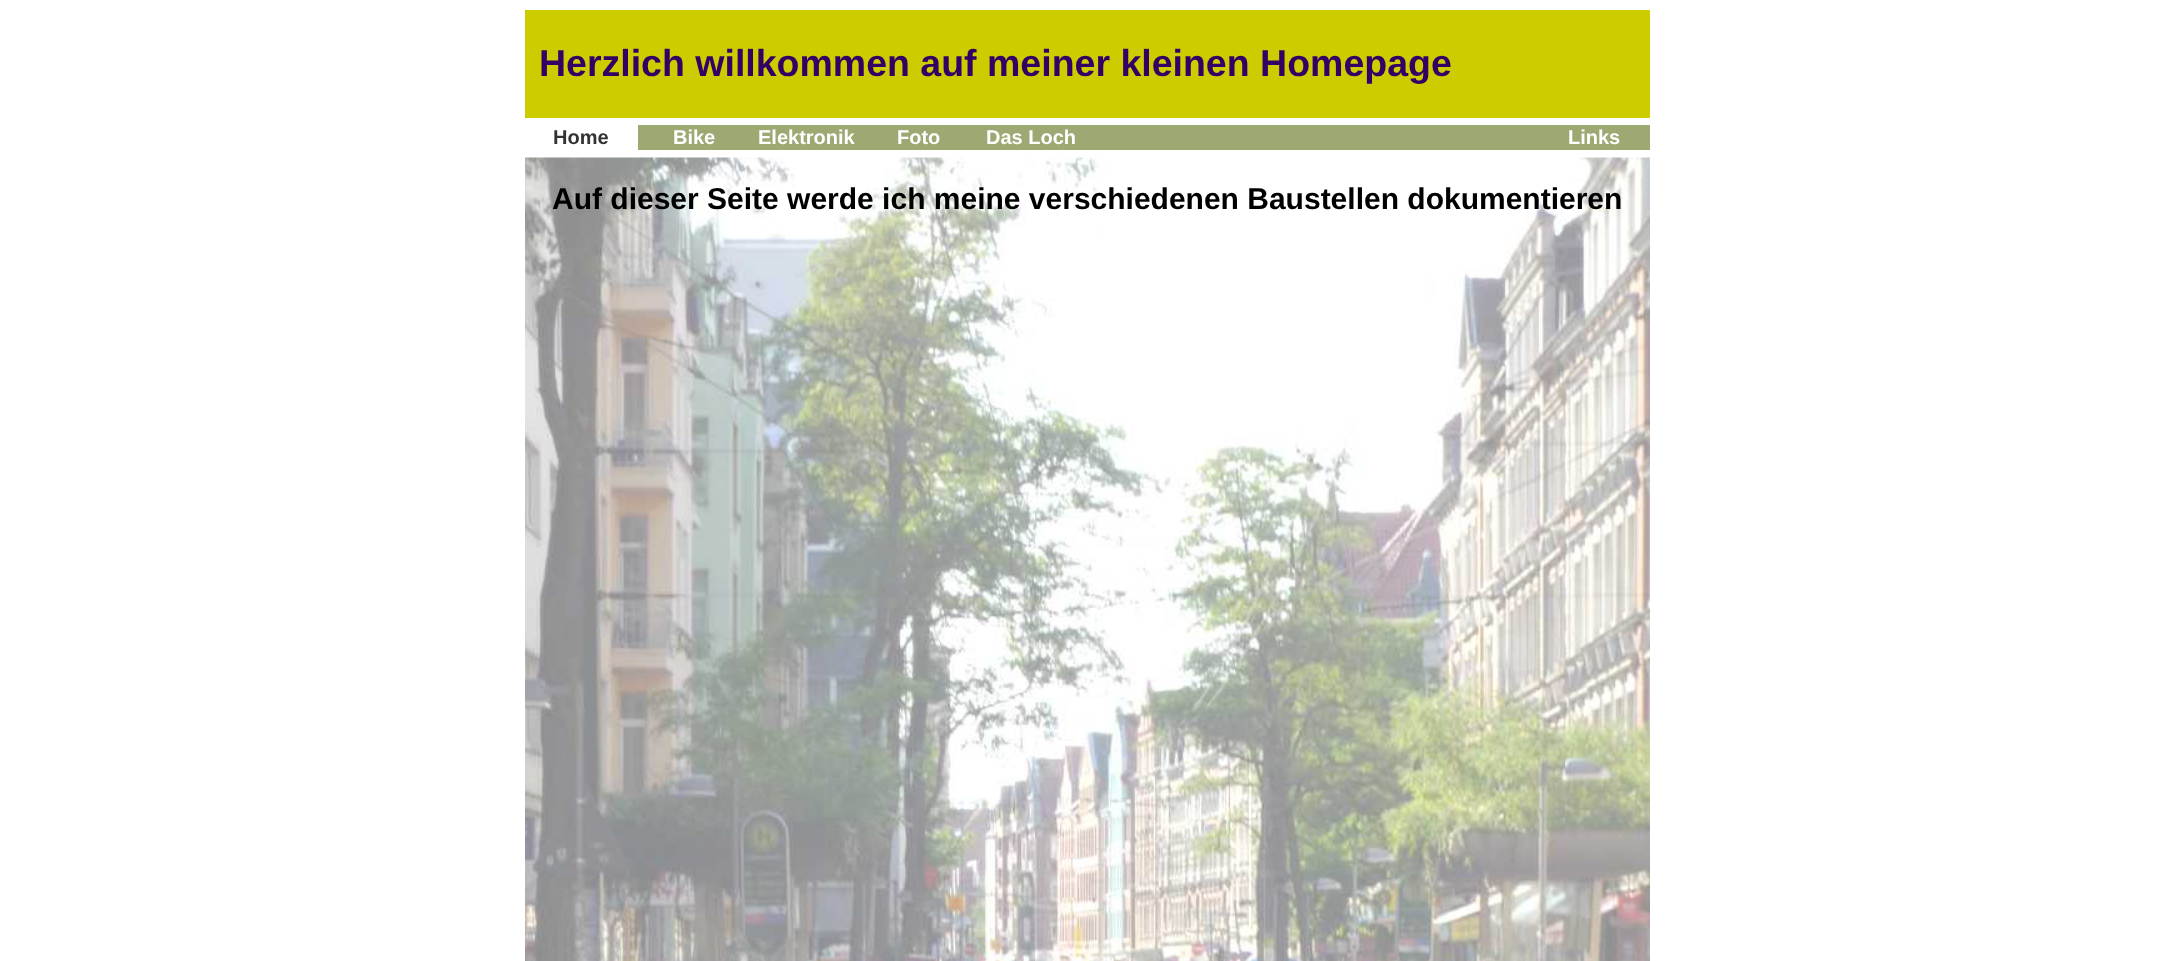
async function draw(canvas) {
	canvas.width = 2175;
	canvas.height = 961;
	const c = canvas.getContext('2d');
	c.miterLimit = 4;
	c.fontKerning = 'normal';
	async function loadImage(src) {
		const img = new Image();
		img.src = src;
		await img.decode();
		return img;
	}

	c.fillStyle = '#fff';
	c.fillRect(0, 0, 2175, 961);
	c.fillStyle = '#cc0';
	c.fillRect(525, 10, 1125, 108);
	c.font = 'bold 37.5px Liberation Sans';
	c.fillStyle = '#306';
	c.fillText('Herzlich willkommen auf meiner kleinen Homepage', 539, 76);
	c.fillStyle = '#9ca972';
	c.fillRect(638, 125, 1012, 25);
	c.font = 'bold 20px Liberation Sans';
	c.fillStyle = '#333';
	c.fillText('Home', 553, 144);
	c.fillStyle = '#fff';
	for (const [text, x, y] of [
		['Bike', 673, 144],
		['Elektronik', 758, 144],
		['Foto', 897, 144],
		['Das Loch', 986, 144],
		['Links', 1568, 144],
	]) {
		c.fillText(text, x, y);
	}
	c.drawImage(await loadImage('img1.png'), 525, 157, 1125, 804);
	c.font = 'bold 30px Liberation Sans';
	c.fillStyle = '#000';
	c.fillText('Auf dieser Seite werde ich meine verschiedenen Baustellen dokumentieren', 552, 209);
}

draw(document.querySelector('canvas'));
